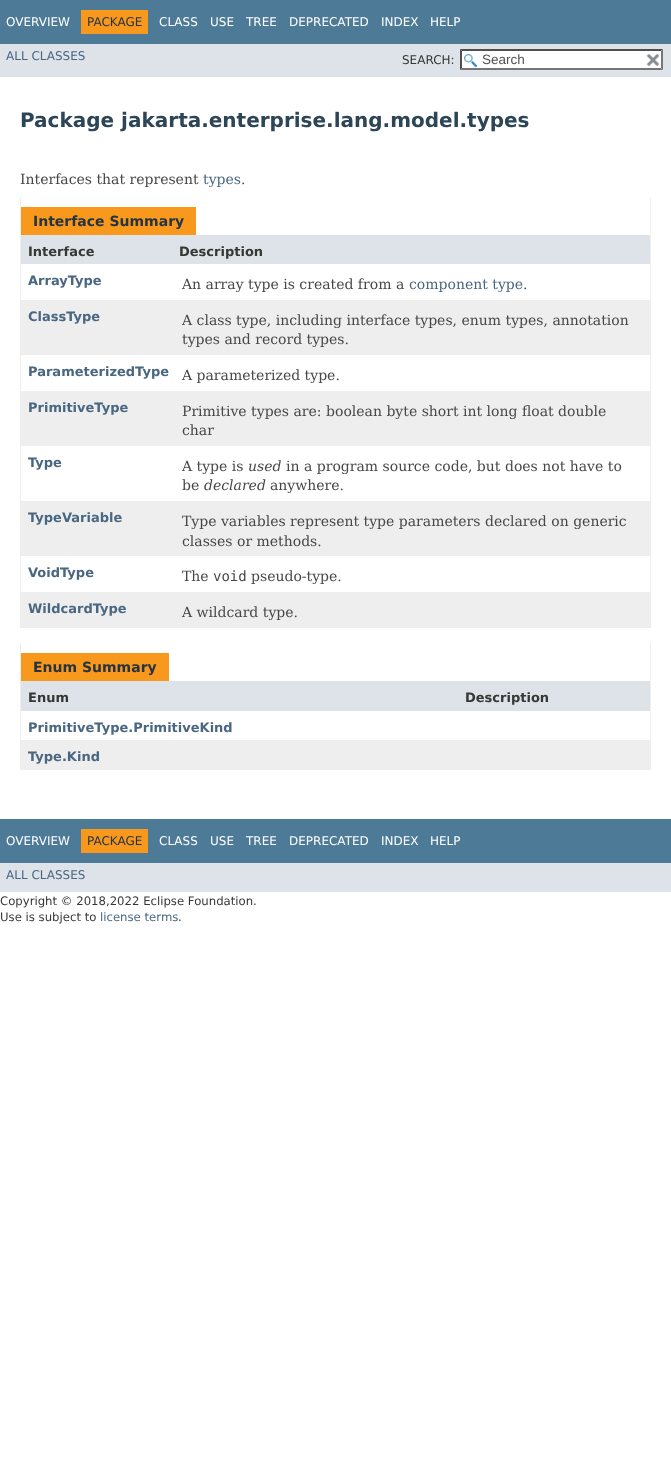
async function draw(canvas) {
	canvas.width = 671;
	canvas.height = 1472;
	const c = canvas.getContext('2d');
	c.miterLimit = 4;
	c.fontKerning = 'normal';
	async function loadImage(src) {
		const img = new Image();
		img.src = src;
		await img.decode();
		return img;
	}

	c.fillStyle = '#fff';
	c.fillRect(0, 0, 671, 1472);
	c.fillStyle = '#4d7a97';
	c.fillRect(0, 0, 671, 44);
	c.font = '12px DejaVu Sans';
	c.fillStyle = '#fff';
	c.fillText('OVERVIEW', 6, 26);
	c.fillStyle = '#f8981d';
	c.fillRect(81, 10, 67, 24);
	c.fillStyle = '#253441';
	c.fillText('PACKAGE', 87, 26);
	c.fillStyle = '#fff';
	for (const [text, x, y] of [
		['CLASS', 159, 26],
		['USE', 210, 26],
		['TREE', 246, 26],
		['DEPRECATED', 289, 26],
		['INDEX', 381, 26],
		['HELP', 430, 26],
	]) {
		c.fillText(text, x, y);
	}
	c.fillStyle = '#dee3e9';
	c.fillRect(0, 44, 671, 33);
	c.fillStyle = '#4a6782';
	c.fillText('ALL CLASSES', 6, 60);
	c.fillStyle = '#353833';
	c.fillText('SEARCH:', 402, 64);
	c.fillStyle = '#fff';
	c.fillRect(460, 49, 203, 21);
	c.drawImage(await loadImage('img1.png'), 464, 54, 13, 13);
	c.fillStyle = '#4f4f4f';
	c.beginPath();
	c.moveTo(460, 49);
	c.lineTo(663, 49);
	c.lineTo(661, 51);
	c.lineTo(462, 51);
	c.closePath();
	c.fill();
	c.fillStyle = '#767676';
	c.beginPath();
	c.moveTo(663, 49);
	c.lineTo(663, 70);
	c.lineTo(661, 68);
	c.lineTo(661, 51);
	c.closePath();
	c.fill();
	c.beginPath();
	c.moveTo(663, 70);
	c.lineTo(460, 70);
	c.lineTo(462, 68);
	c.lineTo(661, 68);
	c.closePath();
	c.fill();
	c.fillStyle = '#4f4f4f';
	c.beginPath();
	c.moveTo(460, 70);
	c.lineTo(460, 49);
	c.lineTo(462, 51);
	c.lineTo(462, 68);
	c.closePath();
	c.fill();
	c.font = '13.5px Liberation Sans';
	c.fillStyle = '#545454';
	c.fillText('Search', 482, 64);
	c.drawImage(await loadImage('img2.png'), 646, 54, 14, 12);
	c.font = 'bold 20px DejaVu Sans';
	c.fillStyle = '#2c4557';
	c.fillText('Package jakarta.enterprise.lang.model.types', 20, 127);
	c.font = '14px DejaVu Serif';
	c.fillStyle = '#474747';
	c.fillText('Interfaces that represent', 20, 184);
	c.fillStyle = '#4a6782';
	c.fillText('types', 203, 184);
	c.fillStyle = '#474747';
	c.fillText('.', 241, 184);
	for (const [x, y, w, h, color] of [
		[650, 197, 1, 431, '#eee'],
		[20, 627, 631, 1, '#eee'],
		[20, 197, 1, 431, '#eee'],
		[21, 207, 175, 28, '#f8981d'],
	]) {
		c.fillStyle = color;
		c.fillRect(x, y, w, h);
	}
	c.font = 'bold 14px DejaVu Sans';
	c.fillStyle = '#253441';
	c.fillText('Interface Summary', 33, 226);
	c.fillStyle = '#dee3e9';
	c.fillRect(21, 235, 629, 29);
	c.font = 'bold 13px DejaVu Sans';
	c.fillStyle = '#353833';
	c.fillText('Interface', 28, 256);
	c.fillText('Description', 179, 256);
	c.fillStyle = '#4a6782';
	c.fillText('ArrayType', 28, 285);
	c.font = '14px DejaVu Serif';
	c.fillStyle = '#474747';
	c.fillText('An array type is created from a', 182, 289);
	c.fillStyle = '#4a6782';
	c.fillText('component type', 409, 289);
	c.fillStyle = '#474747';
	c.fillText('.', 523, 289);
	c.fillStyle = '#eeeeef';
	c.fillRect(21, 300, 629, 55);
	c.font = 'bold 13px DejaVu Sans';
	c.fillStyle = '#4a6782';
	c.fillText('ClassType', 28, 321);
	c.font = '14px DejaVu Serif';
	c.fillStyle = '#474747';
	c.fillText('A class type, including interface types, enum types, annotation', 182, 325);
	c.fillText('types and record types.', 182, 344);
	c.font = 'bold 13px DejaVu Sans';
	c.fillStyle = '#4a6782';
	c.fillText('ParameterizedType', 28, 376);
	c.font = '14px DejaVu Serif';
	c.fillStyle = '#474747';
	c.fillText('A parameterized type.', 182, 380);
	c.fillStyle = '#eeeeef';
	c.fillRect(21, 391, 629, 55);
	c.font = 'bold 13px DejaVu Sans';
	c.fillStyle = '#4a6782';
	c.fillText('PrimitiveType', 28, 412);
	c.font = '14px DejaVu Serif';
	c.fillStyle = '#474747';
	c.fillText('Primitive types are: boolean byte short int long float double', 182, 416);
	c.fillText('char', 182, 435);
	c.font = 'bold 13px DejaVu Sans';
	c.fillStyle = '#4a6782';
	c.fillText('Type', 28, 467);
	c.font = '14px DejaVu Serif';
	c.fillStyle = '#474747';
	c.fillText('A type is', 182, 471);
	c.font = 'italic 14px DejaVu Serif';
	c.fillText('used', 248, 471);
	c.font = '14px DejaVu Serif';
	c.fillText('in a program source code, but does not have to', 286, 471);
	c.fillText('be', 182, 490);
	c.font = 'italic 14px DejaVu Serif';
	c.fillText('declared', 204, 490);
	c.font = '14px DejaVu Serif';
	c.fillText('anywhere.', 270, 490);
	c.fillStyle = '#eeeeef';
	c.fillRect(21, 501, 629, 55);
	c.font = 'bold 13px DejaVu Sans';
	c.fillStyle = '#4a6782';
	c.fillText('TypeVariable', 28, 522);
	c.font = '14px DejaVu Serif';
	c.fillStyle = '#474747';
	c.fillText('Type variables represent type parameters declared on generic', 182, 526);
	c.fillText('classes or methods.', 182, 546);
	c.font = 'bold 13px DejaVu Sans';
	c.fillStyle = '#4a6782';
	c.fillText('VoidType', 28, 577);
	c.font = '14px DejaVu Serif';
	c.fillStyle = '#474747';
	c.fillText('The', 182, 581);
	c.font = '14px DejaVu Sans Mono';
	c.fillText('void', 213, 581);
	c.font = '14px DejaVu Serif';
	c.fillText('pseudo-type.', 251, 581);
	c.fillStyle = '#eeeeef';
	c.fillRect(21, 592, 629, 35);
	c.font = 'bold 13px DejaVu Sans';
	c.fillStyle = '#4a6782';
	c.fillText('WildcardType', 28, 613);
	c.font = '14px DejaVu Serif';
	c.fillStyle = '#474747';
	c.fillText('A wildcard type.', 182, 617);
	for (const [x, y, w, h, color] of [
		[650, 643, 1, 127, '#eee'],
		[20, 769, 631, 1, '#eee'],
		[20, 643, 1, 127, '#eee'],
		[21, 653, 148, 28, '#f8981d'],
	]) {
		c.fillStyle = color;
		c.fillRect(x, y, w, h);
	}
	c.font = 'bold 14px DejaVu Sans';
	c.fillStyle = '#253441';
	c.fillText('Enum Summary', 33, 672);
	c.fillStyle = '#dee3e9';
	c.fillRect(21, 681, 629, 30);
	c.font = 'bold 13px DejaVu Sans';
	c.fillStyle = '#353833';
	c.fillText('Enum', 28, 702);
	c.fillText('Description', 465, 702);
	c.fillStyle = '#4a6782';
	c.fillText('PrimitiveType.PrimitiveKind', 28, 732);
	c.fillStyle = '#eeeeef';
	c.fillRect(21, 740, 629, 29);
	c.fillStyle = '#4a6782';
	c.fillText('Type.Kind', 28, 761);
	c.fillStyle = '#4d7a97';
	c.fillRect(0, 819, 671, 44);
	c.font = '12px DejaVu Sans';
	c.fillStyle = '#fff';
	c.fillText('OVERVIEW', 6, 845);
	c.fillStyle = '#f8981d';
	c.fillRect(81, 829, 67, 24);
	c.fillStyle = '#253441';
	c.fillText('PACKAGE', 87, 845);
	c.fillStyle = '#fff';
	for (const [text, x, y] of [
		['CLASS', 159, 845],
		['USE', 210, 845],
		['TREE', 246, 845],
		['DEPRECATED', 289, 845],
		['INDEX', 381, 845],
		['HELP', 430, 845],
	]) {
		c.fillText(text, x, y);
	}
	c.fillStyle = '#dee3e9';
	c.fillRect(0, 863, 671, 29);
	c.fillStyle = '#4a6782';
	c.fillText('ALL CLASSES', 6, 879);
	c.font = '11.7px DejaVu Sans';
	c.fillStyle = '#353833';
	c.fillText('Copyright © 2018,2022 Eclipse Foundation.', 0, 905);
	c.fillText('Use is subject to', 0, 921);
	c.fillStyle = '#4a6782';
	c.fillText('license terms', 100, 921);
	c.fillStyle = '#353833';
	c.fillText('.', 178, 921);
}

draw(document.querySelector('canvas'));
